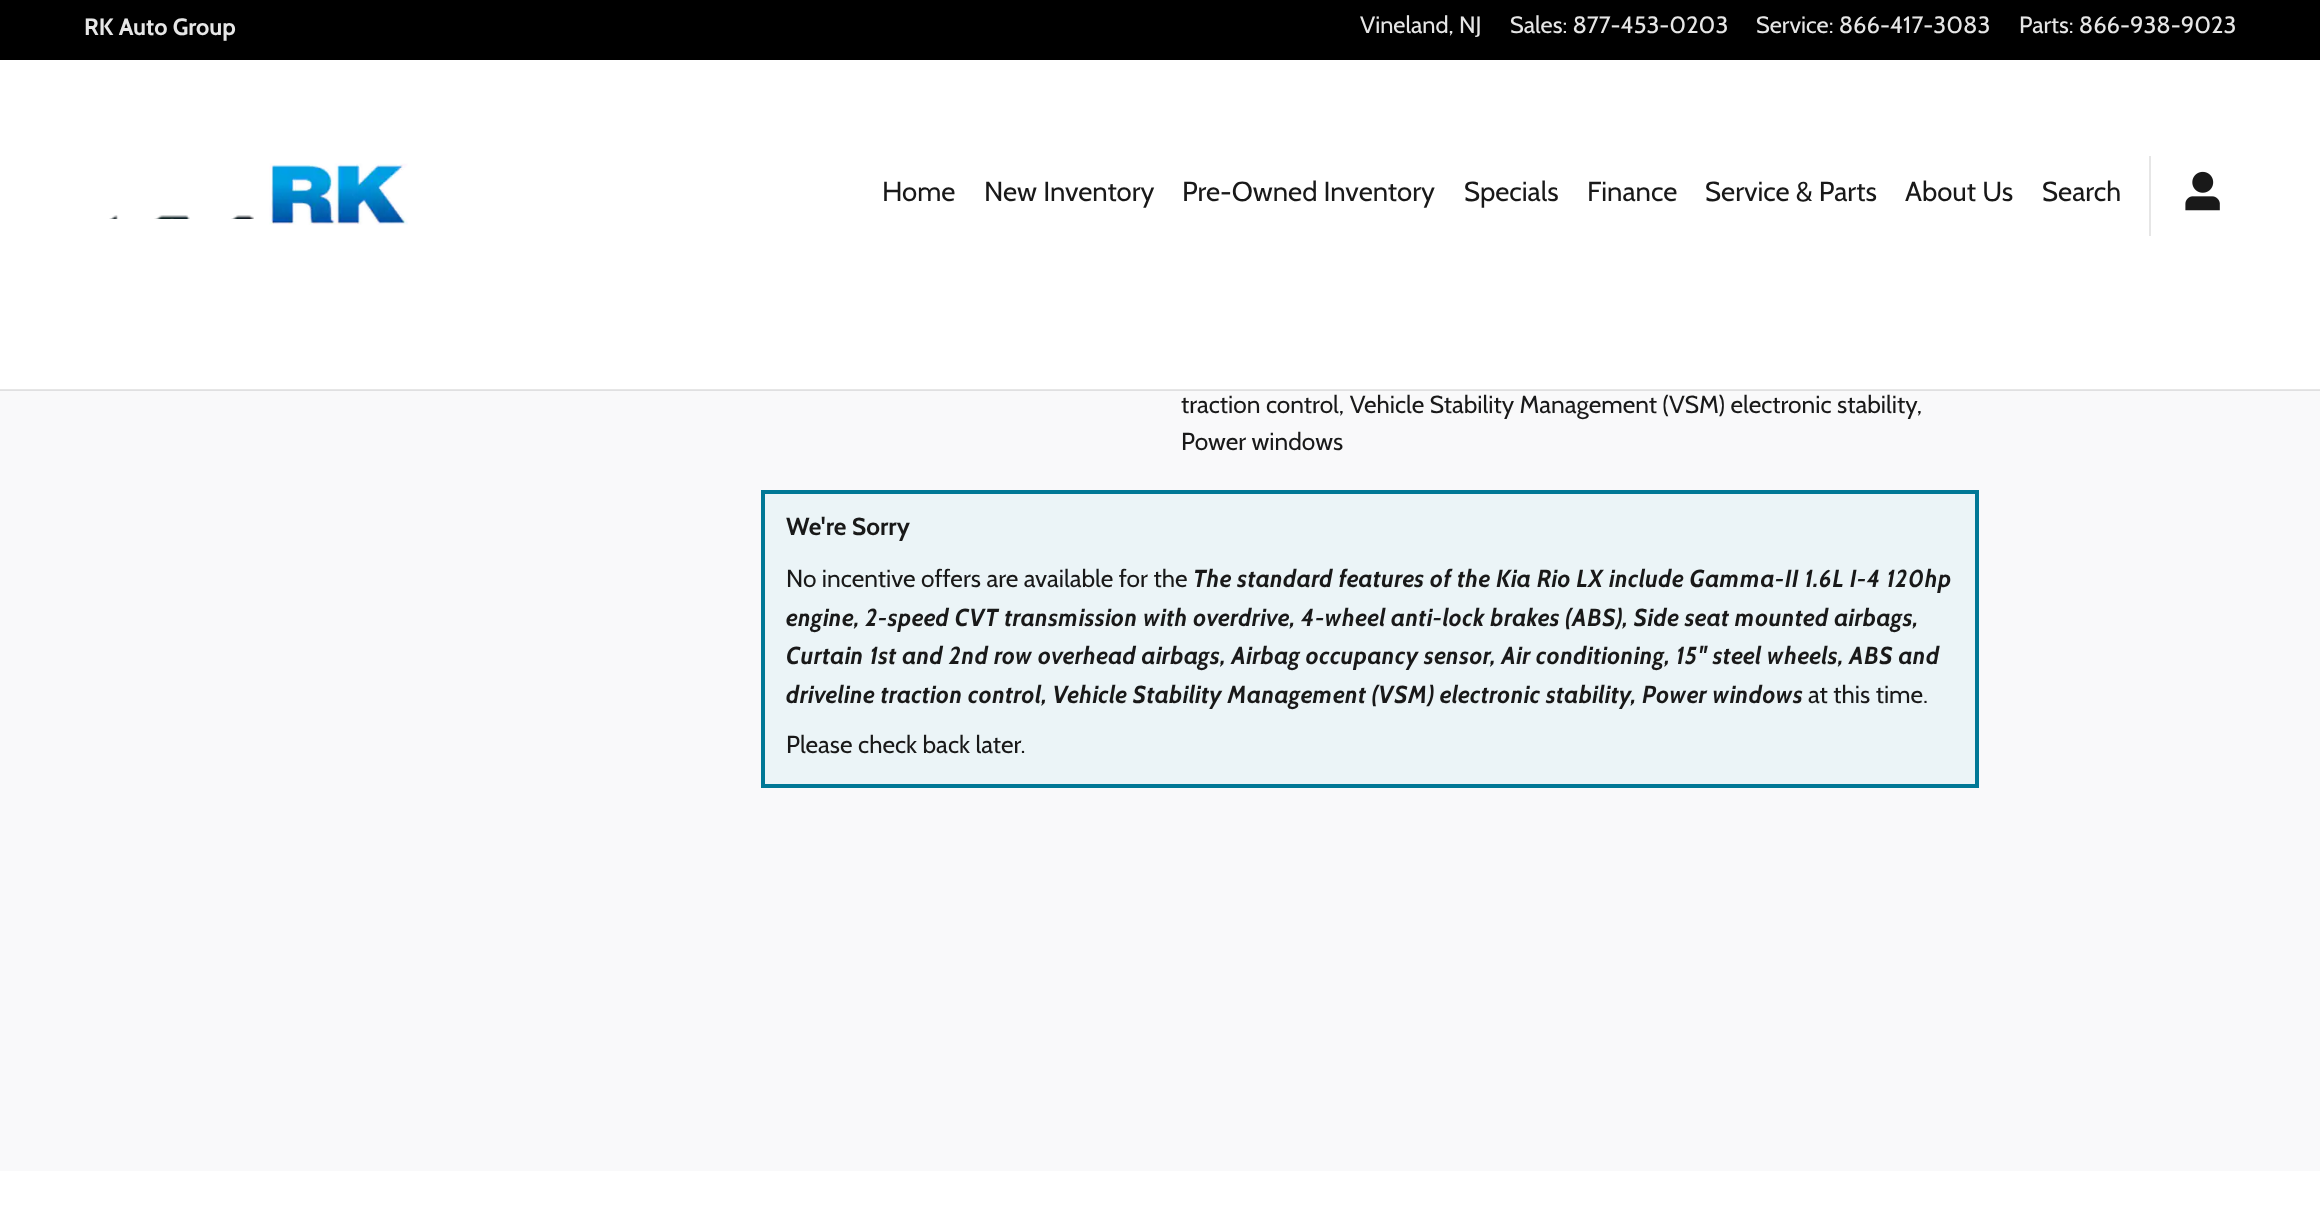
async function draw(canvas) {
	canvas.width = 2320;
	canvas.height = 1218;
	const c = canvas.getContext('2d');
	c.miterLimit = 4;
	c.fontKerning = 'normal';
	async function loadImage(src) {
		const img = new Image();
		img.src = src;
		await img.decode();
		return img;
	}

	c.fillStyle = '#f9f9fa';
	c.fillRect(0, 0, 2320, 1218);
	for (const [x, y, w, h, color] of [
		[0, 390, 2320, 1, '#e0e0e1'],
		[0, 60, 2320, 329, '#fff'],
		[0, 389, 2320, 1, '#e6e6e6'],
		[0, 0, 2320, 60, '#000'],
	]) {
		c.fillStyle = color;
		c.fillRect(x, y, w, h);
	}
	c.font = 'bold 23.6px Cabin';
	c.fillStyle = '#e6e6e6';
	c.fillText('RK Auto Group', 84, 35);
	c.font = '23.6px Cabin';
	for (const [text, x, y] of [
		['Vineland, NJ', 1360, 33],
		['Sales: 877-453-0203', 1510, 33],
		['Service: 866-417-3083', 1756, 33],
		['Parts: 866-938-9023', 2019, 33],
	]) {
		c.fillText(text, x, y);
	}
	c.drawImage(await loadImage('img1.png'), 109, 215, 145, 4);
	c.drawImage(await loadImage('img2.png'), 269, 163, 139, 62);
	c.font = '27.5px Cabin';
	c.fillStyle = '#191919';
	for (const [text, x, y] of [
		['Home', 882, 201],
		['New Inventory', 984, 201],
		['Pre-Owned Inventory', 1182, 201],
		['Specials', 1464, 201],
		['Finance', 1587, 201],
		['Service & Parts', 1705, 201],
		['About Us', 1905, 201],
		['Search', 2042, 201],
	]) {
		c.fillText(text, x, y);
	}
	c.fillStyle = '#e6e6e6';
	c.fillRect(2149, 156, 2, 80);
	c.drawImage(await loadImage('img3.png'), 2185, 171, 35, 40);
	c.font = '24.5px Cabin';
	c.fillStyle = '#191919';
	c.fillText('traction control, Vehicle Stability Management (VSM) electronic stability,', 1181, 413);
	c.fillText('Power windows', 1181, 450);
	c.fillStyle = '#ebf4f7';
	c.beginPath();
	c.rect(763, 492, 1214, 294);
	c.fill();
	c.strokeStyle = '#007896';
	c.lineWidth = 4;
	c.stroke();
	c.font = 'bold 24.5px Cabin';
	c.fillStyle = '#191919';
	c.fillText('We\'re Sorry', 786, 535);
	c.font = '24.5px Cabin';
	c.fillText('No incentive offers are available for the', 786, 587);
	c.font = 'italic bold 24.5px Cabin';
	for (const [text, x, y] of [
		['The standard features of the Kia Rio LX include Gamma-II 1.6L I-4 120hp', 1193, 587],
		['engine, 2-speed CVT transmission with overdrive, 4-wheel anti-lock brakes (ABS), Side seat mounted airbags,', 786, 626],
		['Curtain 1st and 2nd row overhead airbags, Airbag occupancy sensor, Air conditioning, 15" steel wheels, ABS and', 786, 664],
		['driveline traction control, Vehicle Stability Management (VSM) electronic stability, Power windows', 786, 703],
	]) {
		c.fillText(text, x, y);
	}
	c.font = '24.5px Cabin';
	c.fillText('at this time.', 1808, 703);
	c.fillText('Please check back later.', 786, 753);
	c.fillStyle = '#fff';
	c.fillRect(0, 1171, 2320, 47);
}

draw(document.querySelector('canvas'));
